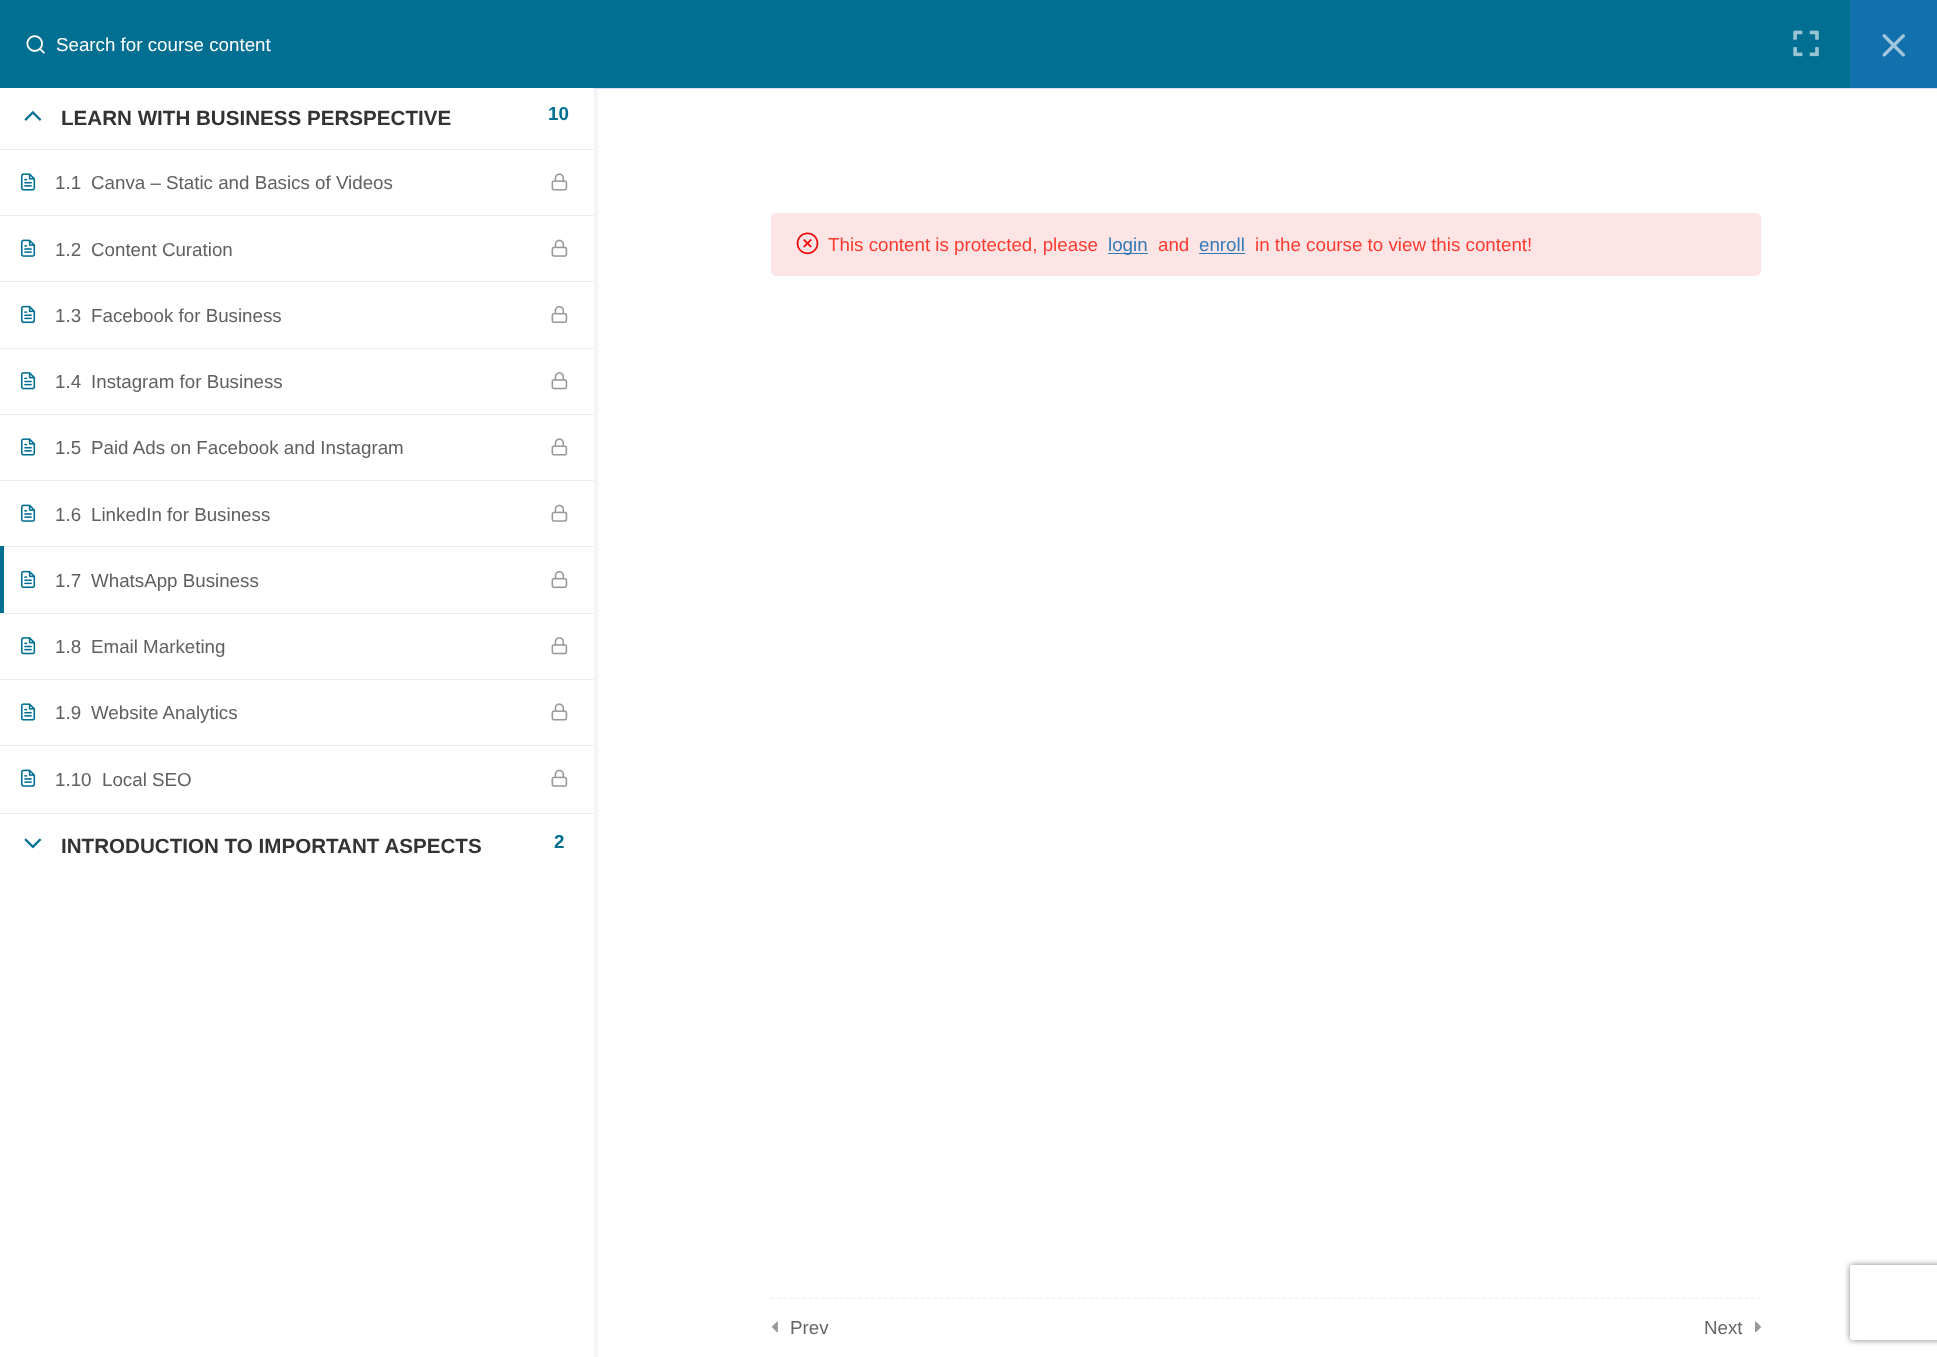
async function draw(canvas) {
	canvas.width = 1937;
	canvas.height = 1357;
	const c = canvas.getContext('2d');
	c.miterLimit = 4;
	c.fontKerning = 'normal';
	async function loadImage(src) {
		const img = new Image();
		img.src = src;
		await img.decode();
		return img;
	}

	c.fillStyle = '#fff';
	c.fillRect(0, 0, 1937, 1357);
	c.save();
	c.beginPath();
	c.rect(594, 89, 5, 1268);
	c.clip();
	c.fillStyle = '#0000001a';
	c.filter = 'blur(6px)';
	c.beginPath();
	c.rect(0, 3, 594, 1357);
	c.fill();
	c.filter = 'none';
	c.restore();
	c.fillStyle = '#006f91';
	c.fillRect(0, 0, 1850, 88);
	c.drawImage(await loadImage('img1.png'), 26, 35, 19, 19);
	c.font = '18.75px Liberation Sans';
	c.fillStyle = '#fff';
	c.fillText('Search for course content', 56, 51);
	c.fillStyle = '#eee';
	c.fillRect(0, 813, 594, 1);
	c.drawImage(await loadImage('img2.png'), 24, 111, 18, 10);
	c.font = 'bold 20.6px Liberation Sans';
	c.fillStyle = '#333';
	c.fillText('LEARN WITH BUSINESS PERSPECTIVE', 61, 125);
	c.font = 'bold 18.75px Liberation Sans';
	c.fillStyle = '#006f91';
	c.fillText('10', 548, 120);
	c.fillStyle = '#eee';
	c.fillRect(0, 149, 594, 1);
	c.drawImage(await loadImage('img3.png'), 21, 173, 15, 18);
	c.font = '18.75px Liberation Sans';
	c.fillStyle = '#606060';
	c.fillText('1.1', 55, 189);
	c.fillText('Canva – Static and Basics of Videos', 91, 189);
	c.drawImage(await loadImage('img4.png'), 551, 173, 17, 18);
	c.fillStyle = '#eee';
	c.fillRect(0, 215, 594, 1);
	c.drawImage(await loadImage('img5.png'), 21, 239, 15, 18);
	c.fillStyle = '#606060';
	c.fillText('1.2', 55, 256);
	c.fillText('Content Curation', 91, 256);
	c.drawImage(await loadImage('img6.png'), 551, 239, 17, 18);
	c.fillStyle = '#eee';
	c.fillRect(0, 281, 594, 1);
	c.drawImage(await loadImage('img7.png'), 21, 305, 15, 19);
	c.fillStyle = '#606060';
	c.fillText('1.3', 55, 322);
	c.fillText('Facebook for Business', 91, 322);
	c.drawImage(await loadImage('img8.png'), 551, 305, 17, 19);
	c.fillStyle = '#eee';
	c.fillRect(0, 348, 594, 1);
	c.drawImage(await loadImage('img9.png'), 21, 372, 15, 18);
	c.fillStyle = '#606060';
	c.fillText('1.4', 55, 388);
	c.fillText('Instagram for Business', 91, 388);
	c.drawImage(await loadImage('img10.png'), 551, 372, 17, 18);
	c.fillStyle = '#eee';
	c.fillRect(0, 414, 594, 1);
	c.drawImage(await loadImage('img3.png'), 21, 438, 15, 18);
	c.fillStyle = '#606060';
	c.fillText('1.5', 55, 454);
	c.fillText('Paid Ads on Facebook and Instagram', 91, 454);
	c.drawImage(await loadImage('img4.png'), 551, 438, 17, 18);
	c.fillStyle = '#eee';
	c.fillRect(0, 480, 594, 1);
	c.drawImage(await loadImage('img5.png'), 21, 504, 15, 18);
	c.fillStyle = '#606060';
	c.fillText('1.6', 55, 521);
	c.fillText('LinkedIn for Business', 91, 521);
	c.drawImage(await loadImage('img6.png'), 551, 504, 17, 18);
	c.fillStyle = '#eee';
	c.fillRect(0, 546, 594, 1);
	c.fillStyle = '#006f91';
	c.fillRect(0, 546, 4, 68);
	c.drawImage(await loadImage('img7.png'), 21, 570, 15, 19);
	c.fillStyle = '#606060';
	c.fillText('1.7', 55, 587);
	c.fillText('WhatsApp Business', 91, 587);
	c.drawImage(await loadImage('img8.png'), 551, 570, 17, 19);
	c.fillStyle = '#eee';
	c.fillRect(0, 613, 594, 1);
	c.drawImage(await loadImage('img9.png'), 21, 637, 15, 18);
	c.fillStyle = '#606060';
	c.fillText('1.8', 55, 653);
	c.fillText('Email Marketing', 91, 653);
	c.drawImage(await loadImage('img10.png'), 551, 637, 17, 18);
	c.fillStyle = '#eee';
	c.fillRect(0, 679, 594, 1);
	c.drawImage(await loadImage('img3.png'), 21, 703, 15, 18);
	c.fillStyle = '#606060';
	c.fillText('1.9', 55, 719);
	c.fillText('Website Analytics', 91, 719);
	c.drawImage(await loadImage('img4.png'), 551, 703, 17, 18);
	c.fillStyle = '#eee';
	c.fillRect(0, 745, 594, 1);
	c.drawImage(await loadImage('img5.png'), 21, 769, 15, 18);
	c.fillStyle = '#606060';
	c.fillText('1.10', 55, 786);
	c.fillText('Local SEO', 102, 786);
	c.drawImage(await loadImage('img6.png'), 551, 769, 17, 18);
	c.drawImage(await loadImage('img11.png'), 24, 838, 18, 11);
	c.font = 'bold 20.6px Liberation Sans';
	c.fillStyle = '#333';
	c.fillText('INTRODUCTION TO IMPORTANT ASPECTS', 61, 853);
	c.font = 'bold 18.75px Liberation Sans';
	c.fillStyle = '#006f91';
	c.fillText('2', 554, 848);
	c.fillStyle = '#d9e0f1';
	c.fillRect(594, 88, 1343, 1);
	c.drawImage(await loadImage('img12.png'), 1793, 30, 26, 27);
	c.fillStyle = '#1271ac';
	c.fillRect(1850, 0, 87, 88);
	c.drawImage(await loadImage('img13.png'), 1882, 34, 23, 23);
	c.fillStyle = '#fee5e5';
	c.beginPath();
	c.roundRect(771, 213, 990, 63, 5);
	c.fill();
	c.drawImage(await loadImage('img14.png'), 796, 232, 23, 23);
	c.font = '18.75px Liberation Sans';
	c.fillStyle = '#ff3b30';
	c.fillText('This content is protected, please', 828, 251);
	c.fillStyle = '#337ab7';
	c.fillRect(1108, 253, 40, 1);
	c.fillText('login', 1108, 251);
	c.fillStyle = '#ff3b30';
	c.fillText('and', 1158, 251);
	c.fillStyle = '#337ab7';
	c.fillText('enroll', 1199, 251);
	c.fillRect(1199, 253, 46, 1);
	c.fillStyle = '#ff3b30';
	c.fillText('in the course to view this content!', 1255, 251);
	c.beginPath();
	c.moveTo(771, 1298);
	c.lineTo(1761, 1298);
	c.strokeStyle = '#ebebeb';
	c.lineWidth = 1.2;
	c.setLineDash([3.75, 2.49]);
	c.stroke();
	c.drawImage(await loadImage('img15.png'), 772, 1321, 6, 12);
	c.fillStyle = '#666';
	c.fillText('Prev', 790, 1334);
	c.fillText('Next', 1704, 1334);
	c.drawImage(await loadImage('img16.png'), 1755, 1321, 6, 12);
	c.save();
	c.beginPath();
	c.moveTo(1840, 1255);
	c.lineTo(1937, 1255);
	c.lineTo(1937, 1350);
	c.lineTo(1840, 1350);
	c.closePath();
	c.moveTo(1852.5, 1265);
	c.lineTo(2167.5, 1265);
	c.bezierCurveTo(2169, 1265, 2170, 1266, 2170, 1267.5);
	c.lineTo(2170, 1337.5);
	c.bezierCurveTo(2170, 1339, 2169, 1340, 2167.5, 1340);
	c.lineTo(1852.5, 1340);
	c.bezierCurveTo(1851, 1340, 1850, 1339, 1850, 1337.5);
	c.lineTo(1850, 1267.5);
	c.bezierCurveTo(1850, 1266, 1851, 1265, 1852.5, 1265);
	c.closePath();
	c.clip('evenodd');
	c.fillStyle = '#808080';
	c.filter = 'blur(3px)';
	c.beginPath();
	c.roundRect(1850, 1265, 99, 75, 2.5);
	c.fill();
	c.filter = 'none';
	c.restore();
}

draw(document.querySelector('canvas'));
